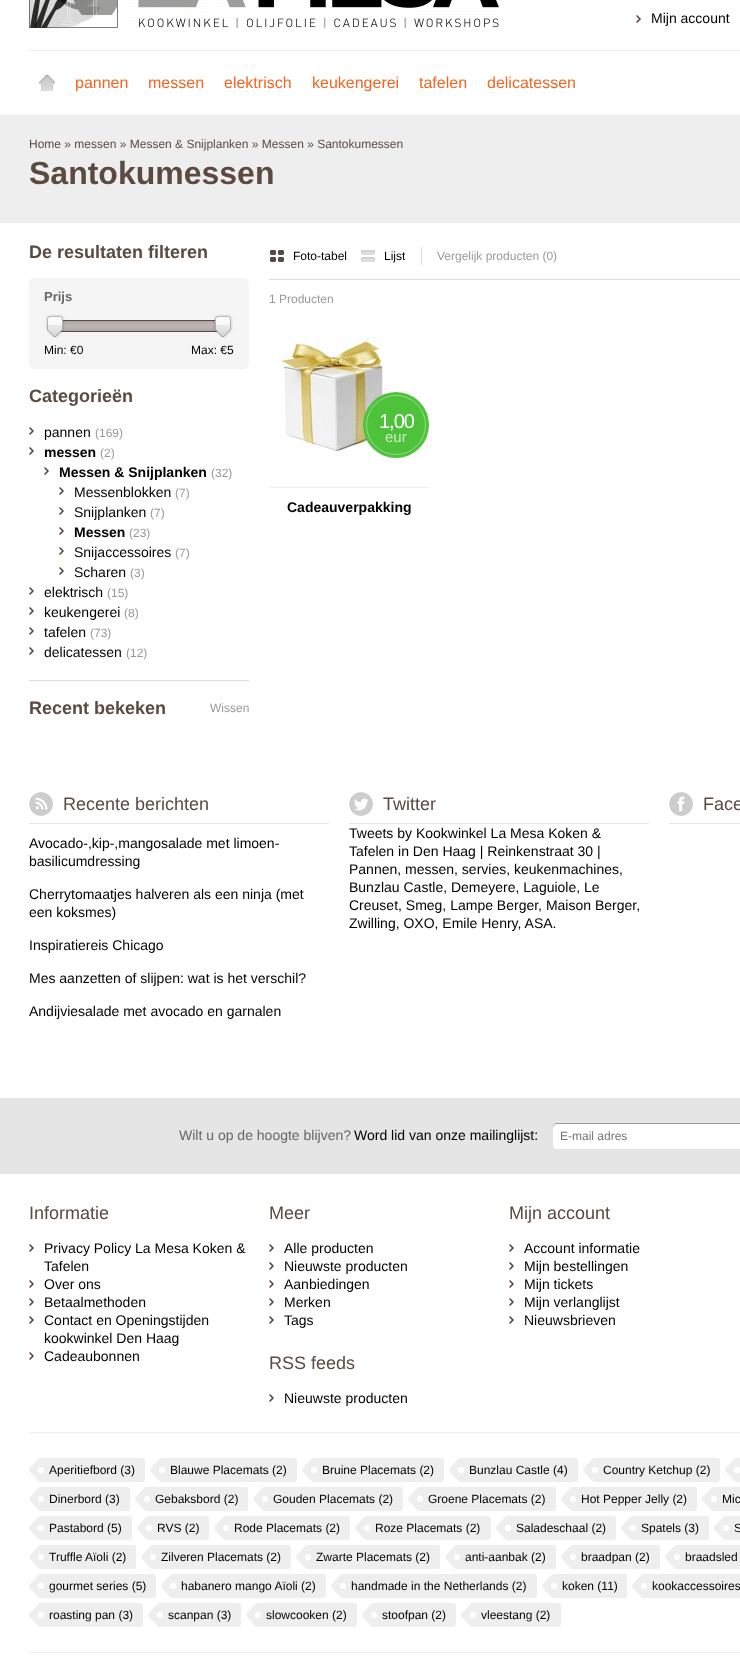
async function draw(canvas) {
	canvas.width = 740;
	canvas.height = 1667;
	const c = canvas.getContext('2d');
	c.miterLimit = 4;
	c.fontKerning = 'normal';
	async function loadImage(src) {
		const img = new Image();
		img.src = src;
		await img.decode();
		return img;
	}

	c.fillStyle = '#fff';
	c.fillRect(0, 0, 740, 1667);
	c.drawImage(await loadImage('img1.png'), 29, 0, 470, 28);
	c.fillStyle = '#5b4a42';
	c.fillRect(636, 15, 6, 8);
	c.drawImage(await loadImage('img2.png'), 636, 10, 94, 16);
	c.font = '14px Liberation Sans';
	c.fillStyle = '#000';
	c.fillText('Mijn account', 651, 23);
	c.fillStyle = '#eee';
	c.fillRect(29, 50, 711, 1);
	c.fillStyle = '#ddd';
	c.fillRect(39, 75, 16, 16);
	c.drawImage(await loadImage('img3.png'), 29, 67, 36, 32);
	c.font = '16px Liberation Sans';
	c.fillStyle = '#f26522';
	for (const [text, x, y] of [
		['pannen', 75, 88],
		['messen', 148, 88],
		['elektrisch', 224, 88],
		['keukengerei', 312, 88],
		['tafelen', 419, 88],
		['delicatessen', 487, 88],
	]) {
		c.fillText(text, x, y);
	}
	c.fillStyle = '#eee';
	c.fillRect(0, 115, 740, 108);
	c.font = '12px Liberation Sans';
	c.fillStyle = '#5b4a42';
	c.fillText('Home » messen » Messen & Snijplanken » Messen » Santokumessen', 29, 148);
	c.font = 'bold 32px Liberation Sans';
	c.fillText('Santokumessen', 29, 184);
	c.font = 'bold 18px Liberation Sans';
	c.fillText('De resultaten filteren', 29, 258);
	c.fillStyle = '#f5f5f5';
	c.beginPath();
	c.roundRect(29, 278, 220, 91, 5);
	c.fill();
	c.font = 'bold 13px Liberation Sans';
	c.fillStyle = '#666';
	c.fillText('Prijs', 44, 301);
	c.fillStyle = '#bdb6b3';
	c.fillRect(61, 321, 156, 10);
	c.drawImage(await loadImage('img6.png'), 61, 321, 156, 10);
	c.strokeStyle = '#5b4a42';
	c.strokeRect(54.5, 320.5, 169, 11);
	c.drawImage(await loadImage('img4.png'), 45, 314, 20, 24);
	c.drawImage(await loadImage('img5.png'), 213, 314, 20, 24);
	c.font = '12px Liberation Sans';
	c.fillStyle = '#000';
	c.fillText('Min: €0', 44, 354);
	c.fillText('Max: €5', 191, 354);
	c.fillStyle = '#ddd';
	c.fillRect(29, 680, 220, 1);
	c.font = 'bold 18px Liberation Sans';
	c.fillStyle = '#5b4a42';
	c.fillText('Categorieën', 29, 402);
	c.fillRect(29, 427, 5, 8);
	c.drawImage(await loadImage('img7.png'), 29, 422, 15, 15);
	c.font = '14px Liberation Sans';
	c.fillStyle = '#000';
	c.fillText('pannen', 44, 437);
	c.font = '12px Liberation Sans';
	c.fillStyle = '#999';
	c.fillText('(169)', 95, 437);
	c.fillStyle = '#5b4a42';
	c.fillRect(29, 447, 5, 8);
	c.drawImage(await loadImage('img7.png'), 29, 442, 15, 15);
	c.font = 'bold 14px Liberation Sans';
	c.fillStyle = '#000';
	c.fillText('messen', 44, 457);
	c.font = '12px Liberation Sans';
	c.fillStyle = '#999';
	c.fillText('(2)', 100, 457);
	c.fillStyle = '#5b4a42';
	c.fillRect(44, 467, 5, 8);
	c.drawImage(await loadImage('img7.png'), 44, 462, 15, 15);
	c.font = 'bold 14px Liberation Sans';
	c.fillStyle = '#000';
	c.fillText('Messen & Snijplanken', 59, 477);
	c.font = '12px Liberation Sans';
	c.fillStyle = '#999';
	c.fillText('(32)', 211, 477);
	c.fillStyle = '#5b4a42';
	c.fillRect(59, 487, 5, 8);
	c.drawImage(await loadImage('img7.png'), 59, 482, 15, 15);
	c.font = '14px Liberation Sans';
	c.fillStyle = '#000';
	c.fillText('Messenblokken', 74, 497);
	c.font = '12px Liberation Sans';
	c.fillStyle = '#999';
	c.fillText('(7)', 175, 497);
	c.fillStyle = '#5b4a42';
	c.fillRect(59, 507, 5, 8);
	c.drawImage(await loadImage('img7.png'), 59, 502, 15, 15);
	c.font = '14px Liberation Sans';
	c.fillStyle = '#000';
	c.fillText('Snijplanken', 74, 517);
	c.font = '12px Liberation Sans';
	c.fillStyle = '#999';
	c.fillText('(7)', 150, 517);
	c.fillStyle = '#5b4a42';
	c.fillRect(59, 527, 5, 8);
	c.drawImage(await loadImage('img7.png'), 59, 522, 15, 15);
	c.font = 'bold 14px Liberation Sans';
	c.fillStyle = '#000';
	c.fillText('Messen', 74, 537);
	c.font = '12px Liberation Sans';
	c.fillStyle = '#999';
	c.fillText('(23)', 129, 537);
	c.fillStyle = '#5b4a42';
	c.fillRect(59, 547, 5, 8);
	c.drawImage(await loadImage('img7.png'), 59, 542, 15, 15);
	c.font = '14px Liberation Sans';
	c.fillStyle = '#000';
	c.fillText('Snijaccessoires', 74, 557);
	c.font = '12px Liberation Sans';
	c.fillStyle = '#999';
	c.fillText('(7)', 175, 557);
	c.fillStyle = '#5b4a42';
	c.fillRect(59, 567, 5, 8);
	c.drawImage(await loadImage('img7.png'), 59, 562, 15, 15);
	c.font = '14px Liberation Sans';
	c.fillStyle = '#000';
	c.fillText('Scharen', 74, 577);
	c.font = '12px Liberation Sans';
	c.fillStyle = '#999';
	c.fillText('(3)', 130, 577);
	c.fillStyle = '#5b4a42';
	c.fillRect(29, 587, 5, 8);
	c.drawImage(await loadImage('img7.png'), 29, 582, 15, 15);
	c.font = '14px Liberation Sans';
	c.fillStyle = '#000';
	c.fillText('elektrisch', 44, 597);
	c.font = '12px Liberation Sans';
	c.fillStyle = '#999';
	c.fillText('(15)', 107, 597);
	c.fillStyle = '#5b4a42';
	c.fillRect(29, 607, 5, 8);
	c.drawImage(await loadImage('img7.png'), 29, 602, 15, 15);
	c.font = '14px Liberation Sans';
	c.fillStyle = '#000';
	c.fillText('keukengerei', 44, 617);
	c.font = '12px Liberation Sans';
	c.fillStyle = '#999';
	c.fillText('(8)', 124, 617);
	c.fillStyle = '#5b4a42';
	c.fillRect(29, 627, 5, 8);
	c.drawImage(await loadImage('img7.png'), 29, 622, 15, 15);
	c.font = '14px Liberation Sans';
	c.fillStyle = '#000';
	c.fillText('tafelen', 44, 637);
	c.font = '12px Liberation Sans';
	c.fillStyle = '#999';
	c.fillText('(73)', 90, 637);
	c.fillStyle = '#5b4a42';
	c.fillRect(29, 647, 5, 8);
	c.drawImage(await loadImage('img7.png'), 29, 642, 15, 15);
	c.font = '14px Liberation Sans';
	c.fillStyle = '#000';
	c.fillText('delicatessen', 44, 657);
	c.font = '12px Liberation Sans';
	c.fillStyle = '#999';
	c.fillText('(12)', 126, 657);
	c.font = 'bold 18px Liberation Sans';
	c.fillStyle = '#5b4a42';
	c.fillText('Recent bekeken', 29, 714);
	c.font = '12px Liberation Sans';
	c.fillStyle = '#999';
	c.fillText('Wissen', 210, 712);
	c.fillStyle = '#ddd';
	c.fillRect(269, 279, 471, 1);
	c.fillStyle = '#5b4a42';
	c.fillRect(270, 250, 14, 12);
	c.drawImage(await loadImage('img8.png'), 269, 248, 16, 16);
	c.fillStyle = '#000';
	c.fillText('Foto-tabel', 293, 260);
	c.fillStyle = '#ddd';
	c.fillRect(361, 250, 14, 12);
	c.drawImage(await loadImage('img9.png'), 360, 248, 16, 16);
	c.fillStyle = '#000';
	c.fillText('Lijst', 384, 260);
	c.fillStyle = '#ddd';
	c.fillRect(421, 247, 1, 18);
	c.fillStyle = '#999';
	c.fillText('Vergelijk producten (0)', 437, 260);
	c.fillText('1 Producten', 269, 303);
	c.drawImage(await loadImage('img10.png'), 279, 328, 140, 128);
	c.fillStyle = '#4ec23a';
	c.beginPath();
	c.arc(396, 425, 33, 0, 2 * Math.PI);
	c.fill();
	c.beginPath();
	c.arc(396, 425, 29.5, 0, 2 * Math.PI);
	c.strokeStyle = '#95da89';
	c.stroke();
	c.letterSpacing = '-1px';
	c.font = '20px Liberation Sans';
	c.fillStyle = '#fff';
	c.fillText('1,00', 379, 428);
	c.letterSpacing = '0px';
	c.font = '15px Liberation Sans';
	c.fillStyle = '#caedc4';
	c.fillText('eur', 385, 442);
	c.fillStyle = '#eee';
	c.fillRect(269, 487, 160, 1);
	c.font = 'bold 14px Liberation Sans';
	c.fillStyle = '#000';
	c.fillText('Cadeauverpakking', 287, 512);
	c.drawImage(await loadImage('img11.png'), 29, 792, 24, 24);
	c.fillStyle = '#e5e5e5';
	c.fillRect(29, 823, 300, 1);
	c.font = '18px Liberation Sans';
	c.fillStyle = '#5b4a42';
	c.fillText('Recente berichten', 63, 810);
	c.font = '14px Liberation Sans';
	c.fillStyle = '#000';
	for (const [text, x, y] of [
		['Avocado-,kip-,mangosalade met limoen-', 29, 848],
		['basilicumdressing', 29, 866],
		['Cherrytomaatjes halveren als een ninja (met', 29, 899],
		['een koksmes)', 29, 917],
		['Inspiratiereis Chicago', 29, 950],
		['Mes aanzetten of slijpen: wat is het verschil?', 29, 983],
		['Andijviesalade met avocado en garnalen', 29, 1016],
	]) {
		c.fillText(text, x, y);
	}
	c.drawImage(await loadImage('img12.png'), 349, 792, 24, 24);
	c.fillStyle = '#e5e5e5';
	c.fillRect(349, 823, 300, 1);
	c.font = '18px Liberation Sans';
	c.fillStyle = '#5b4a42';
	c.fillText('Twitter', 383, 810);
	c.font = '14px Liberation Sans';
	c.fillStyle = '#000';
	for (const [text, x, y] of [
		['Tweets by Kookwinkel La Mesa Koken &', 349, 838],
		['Tafelen in Den Haag | Reinkenstraat 30 |', 349, 856],
		['Pannen, messen, servies, keukenmachines,', 349, 874],
		['Bunzlau Castle, Demeyere, Laguiole, Le', 349, 892],
		['Creuset, Smeg, Lampe Berger, Maison Berger,', 349, 910],
		['Zwilling, OXO, Emile Henry, ASA.', 349, 928],
	]) {
		c.fillText(text, x, y);
	}
	c.drawImage(await loadImage('img13.png'), 669, 792, 24, 24);
	c.fillStyle = '#e5e5e5';
	c.fillRect(669, 823, 71, 1);
	c.font = '18px Liberation Sans';
	c.fillStyle = '#5b4a42';
	c.fillText('Face', 703, 810);
	c.fillStyle = '#e5e5e5';
	c.fillRect(0, 1098, 740, 76);
	c.font = '14px Liberation Sans';
	c.fillStyle = '#666';
	c.fillText('Wilt u op de hoogte blijven?', 179, 1140);
	c.fillStyle = '#000';
	c.fillText('Word lid van onze mailinglijst:', 354, 1140);
	c.fillStyle = '#fff';
	c.beginPath();
	c.roundRect(553, 1123, 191, 26, 4);
	c.fill();
	c.fillStyle = '#00000066';
	c.beginPath();
	c.moveTo(557, 1124);
	c.lineTo(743, 1124);
	c.bezierCurveTo(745, 1124, 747, 1126, 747, 1128);
	c.lineTo(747, 1127);
	c.bezierCurveTo(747, 1125, 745, 1123, 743, 1123);
	c.lineTo(557, 1123);
	c.bezierCurveTo(555, 1123, 553, 1125, 553, 1127);
	c.lineTo(553, 1128);
	c.bezierCurveTo(553, 1126, 555, 1124, 557, 1124);
	c.closePath();
	c.fill();
	c.font = '12px Liberation Sans';
	c.fillStyle = '#757575';
	c.fillText('E-mail adres', 560, 1140);
	c.fillStyle = '#eee';
	c.fillRect(29, 1432, 711, 1);
	c.font = '18px Liberation Sans';
	c.fillStyle = '#5b4a42';
	c.fillText('Informatie', 29, 1219);
	c.fillRect(29, 1244, 5, 8);
	c.drawImage(await loadImage('img14.png'), 29, 1239, 220, 36);
	c.font = '14px Liberation Sans';
	c.fillStyle = '#000';
	c.fillText('Privacy Policy La Mesa Koken &', 44, 1253);
	c.fillText('Tafelen', 44, 1271);
	c.fillStyle = '#5b4a42';
	c.fillRect(29, 1280, 5, 8);
	c.drawImage(await loadImage('img15.png'), 29, 1275, 220, 18);
	c.fillStyle = '#000';
	c.fillText('Over ons', 44, 1289);
	c.fillStyle = '#5b4a42';
	c.fillRect(29, 1298, 5, 8);
	c.drawImage(await loadImage('img15.png'), 29, 1293, 220, 18);
	c.fillStyle = '#000';
	c.fillText('Betaalmethoden', 44, 1307);
	c.fillStyle = '#5b4a42';
	c.fillRect(29, 1316, 5, 8);
	c.drawImage(await loadImage('img14.png'), 29, 1311, 220, 36);
	c.fillStyle = '#000';
	c.fillText('Contact en Openingstijden', 44, 1325);
	c.fillText('kookwinkel Den Haag', 44, 1343);
	c.fillStyle = '#5b4a42';
	c.fillRect(29, 1352, 5, 8);
	c.drawImage(await loadImage('img15.png'), 29, 1347, 220, 18);
	c.fillStyle = '#000';
	c.fillText('Cadeaubonnen', 44, 1361);
	c.font = '18px Liberation Sans';
	c.fillStyle = '#5b4a42';
	c.fillText('Meer', 269, 1219);
	c.fillRect(269, 1244, 5, 8);
	c.drawImage(await loadImage('img15.png'), 269, 1239, 220, 18);
	c.font = '14px Liberation Sans';
	c.fillStyle = '#000';
	c.fillText('Alle producten', 284, 1253);
	c.fillStyle = '#5b4a42';
	c.fillRect(269, 1262, 5, 8);
	c.drawImage(await loadImage('img15.png'), 269, 1257, 220, 18);
	c.fillStyle = '#000';
	c.fillText('Nieuwste producten', 284, 1271);
	c.fillStyle = '#5b4a42';
	c.fillRect(269, 1280, 5, 8);
	c.drawImage(await loadImage('img15.png'), 269, 1275, 220, 18);
	c.fillStyle = '#000';
	c.fillText('Aanbiedingen', 284, 1289);
	c.fillStyle = '#5b4a42';
	c.fillRect(269, 1298, 5, 8);
	c.drawImage(await loadImage('img15.png'), 269, 1293, 220, 18);
	c.fillStyle = '#000';
	c.fillText('Merken', 284, 1307);
	c.fillStyle = '#5b4a42';
	c.fillRect(269, 1316, 5, 8);
	c.drawImage(await loadImage('img15.png'), 269, 1311, 220, 18);
	c.fillStyle = '#000';
	c.fillText('Tags', 284, 1325);
	c.font = '18px Liberation Sans';
	c.fillStyle = '#5b4a42';
	c.fillText('RSS feeds', 269, 1369);
	c.fillRect(269, 1394, 5, 8);
	c.drawImage(await loadImage('img15.png'), 269, 1389, 220, 18);
	c.font = '14px Liberation Sans';
	c.fillStyle = '#000';
	c.fillText('Nieuwste producten', 284, 1403);
	c.font = '18px Liberation Sans';
	c.fillStyle = '#5b4a42';
	c.fillText('Mijn account', 509, 1219);
	c.fillRect(509, 1244, 5, 8);
	c.drawImage(await loadImage('img15.png'), 509, 1239, 220, 18);
	c.font = '14px Liberation Sans';
	c.fillStyle = '#000';
	c.fillText('Account informatie', 524, 1253);
	c.fillStyle = '#5b4a42';
	c.fillRect(509, 1262, 5, 8);
	c.drawImage(await loadImage('img15.png'), 509, 1257, 220, 18);
	c.fillStyle = '#000';
	c.fillText('Mijn bestellingen', 524, 1271);
	c.fillStyle = '#5b4a42';
	c.fillRect(509, 1280, 5, 8);
	c.drawImage(await loadImage('img15.png'), 509, 1275, 220, 18);
	c.fillStyle = '#000';
	c.fillText('Mijn tickets', 524, 1289);
	c.fillStyle = '#5b4a42';
	c.fillRect(509, 1298, 5, 8);
	c.drawImage(await loadImage('img15.png'), 509, 1293, 220, 18);
	c.fillStyle = '#000';
	c.fillText('Mijn verlanglijst', 524, 1307);
	c.fillStyle = '#5b4a42';
	c.fillRect(509, 1316, 5, 8);
	c.drawImage(await loadImage('img15.png'), 509, 1311, 220, 18);
	c.fillStyle = '#000';
	c.fillText('Nieuwsbrieven', 524, 1325);
	c.fillStyle = '#eee';
	c.fillRect(29, 1652, 711, 1);
	c.beginPath();
	c.roundRect(29, 1458, 116, 24, [0, 3, 3, 0]);
	c.fill();
	c.drawImage(await loadImage('img16.png'), 29, 1458, 15, 24);
	c.font = '12px Liberation Sans';
	c.fillStyle = '#000';
	c.fillText('Aperitiefbord (3)', 49, 1474);
	c.fillStyle = '#eee';
	c.beginPath();
	c.roundRect(150, 1458, 147, 24, [0, 3, 3, 0]);
	c.fill();
	c.drawImage(await loadImage('img16.png'), 150, 1458, 15, 24);
	c.fillStyle = '#000';
	c.fillText('Blauwe Placemats (2)', 170, 1474);
	c.fillStyle = '#eee';
	c.beginPath();
	c.roundRect(302, 1458, 142, 24, [0, 3, 3, 0]);
	c.fill();
	c.drawImage(await loadImage('img16.png'), 302, 1458, 15, 24);
	c.fillStyle = '#000';
	c.fillText('Bruine Placemats (2)', 322, 1474);
	c.fillStyle = '#eee';
	c.beginPath();
	c.roundRect(449, 1458, 129, 24, [0, 3, 3, 0]);
	c.fill();
	c.drawImage(await loadImage('img16.png'), 449, 1458, 15, 24);
	c.fillStyle = '#000';
	c.fillText('Bunzlau Castle (4)', 469, 1474);
	c.fillStyle = '#eee';
	c.beginPath();
	c.roundRect(583, 1458, 137, 24, [0, 3, 3, 0]);
	c.fill();
	c.drawImage(await loadImage('img16.png'), 583, 1458, 15, 24);
	c.fillStyle = '#000';
	c.fillText('Country Ketchup (2)', 603, 1474);
	c.fillStyle = '#eee';
	c.fillRect(725, 1458, 15, 24);
	c.drawImage(await loadImage('img16.png'), 725, 1458, 15, 24);
	c.beginPath();
	c.roundRect(29, 1487, 101, 24, [0, 3, 3, 0]);
	c.fill();
	c.drawImage(await loadImage('img16.png'), 29, 1487, 15, 24);
	c.fillStyle = '#000';
	c.fillText('Dinerbord (3)', 49, 1503);
	c.fillStyle = '#eee';
	c.beginPath();
	c.roundRect(135, 1487, 113, 24, [0, 3, 3, 0]);
	c.fill();
	c.drawImage(await loadImage('img16.png'), 135, 1487, 15, 24);
	c.fillStyle = '#000';
	c.fillText('Gebaksbord (2)', 155, 1503);
	c.fillStyle = '#eee';
	c.beginPath();
	c.roundRect(253, 1487, 150, 24, [0, 3, 3, 0]);
	c.fill();
	c.drawImage(await loadImage('img16.png'), 253, 1487, 15, 24);
	c.fillStyle = '#000';
	c.fillText('Gouden Placemats (2)', 273, 1503);
	c.fillStyle = '#eee';
	c.beginPath();
	c.roundRect(408, 1487, 148, 24, [0, 3, 3, 0]);
	c.fill();
	c.drawImage(await loadImage('img16.png'), 408, 1487, 15, 24);
	c.fillStyle = '#000';
	c.fillText('Groene Placemats (2)', 428, 1503);
	c.fillStyle = '#eee';
	c.beginPath();
	c.roundRect(561, 1487, 136, 24, [0, 3, 3, 0]);
	c.fill();
	c.drawImage(await loadImage('img16.png'), 561, 1487, 15, 24);
	c.fillStyle = '#000';
	c.fillText('Hot Pepper Jelly (2)', 581, 1503);
	c.fillStyle = '#eee';
	c.fillRect(702, 1487, 38, 24);
	c.drawImage(await loadImage('img16.png'), 702, 1487, 15, 24);
	c.fillStyle = '#000';
	c.fillText('Mic', 722, 1503);
	c.fillStyle = '#eee';
	c.beginPath();
	c.roundRect(29, 1516, 103, 24, [0, 3, 3, 0]);
	c.fill();
	c.drawImage(await loadImage('img16.png'), 29, 1516, 15, 24);
	c.fillStyle = '#000';
	c.fillText('Pastabord (5)', 49, 1532);
	c.fillStyle = '#eee';
	c.beginPath();
	c.roundRect(137, 1516, 72, 24, [0, 3, 3, 0]);
	c.fill();
	c.drawImage(await loadImage('img16.png'), 137, 1516, 15, 24);
	c.fillStyle = '#000';
	c.fillText('RVS (2)', 157, 1532);
	c.fillStyle = '#eee';
	c.beginPath();
	c.roundRect(214, 1516, 136, 24, [0, 3, 3, 0]);
	c.fill();
	c.drawImage(await loadImage('img16.png'), 214, 1516, 15, 24);
	c.fillStyle = '#000';
	c.fillText('Rode Placemats (2)', 234, 1532);
	c.fillStyle = '#eee';
	c.beginPath();
	c.roundRect(355, 1516, 136, 24, [0, 3, 3, 0]);
	c.fill();
	c.drawImage(await loadImage('img16.png'), 355, 1516, 15, 24);
	c.fillStyle = '#000';
	c.fillText('Roze Placemats (2)', 375, 1532);
	c.fillStyle = '#eee';
	c.beginPath();
	c.roundRect(496, 1516, 120, 24, [0, 3, 3, 0]);
	c.fill();
	c.drawImage(await loadImage('img16.png'), 496, 1516, 15, 24);
	c.fillStyle = '#000';
	c.fillText('Saladeschaal (2)', 516, 1532);
	c.fillStyle = '#eee';
	c.beginPath();
	c.roundRect(621, 1516, 88, 24, [0, 3, 3, 0]);
	c.fill();
	c.drawImage(await loadImage('img16.png'), 621, 1516, 15, 24);
	c.fillStyle = '#000';
	c.fillText('Spatels (3)', 641, 1532);
	c.fillStyle = '#eee';
	c.fillRect(714, 1516, 26, 24);
	c.drawImage(await loadImage('img16.png'), 714, 1516, 15, 24);
	c.fillStyle = '#000';
	c.fillText('S', 734, 1532);
	c.fillStyle = '#eee';
	c.beginPath();
	c.roundRect(29, 1545, 107, 24, [0, 3, 3, 0]);
	c.fill();
	c.drawImage(await loadImage('img16.png'), 29, 1545, 15, 24);
	c.fillStyle = '#000';
	c.fillText('Truffle Aïoli (2)', 49, 1561);
	c.fillStyle = '#eee';
	c.beginPath();
	c.roundRect(141, 1545, 150, 24, [0, 3, 3, 0]);
	c.fill();
	c.drawImage(await loadImage('img16.png'), 141, 1545, 15, 24);
	c.fillStyle = '#000';
	c.fillText('Zilveren Placemats (2)', 161, 1561);
	c.fillStyle = '#eee';
	c.beginPath();
	c.roundRect(296, 1545, 144, 24, [0, 3, 3, 0]);
	c.fill();
	c.drawImage(await loadImage('img16.png'), 296, 1545, 15, 24);
	c.fillStyle = '#000';
	c.fillText('Zwarte Placemats (2)', 316, 1561);
	c.fillStyle = '#eee';
	c.beginPath();
	c.roundRect(445, 1545, 111, 24, [0, 3, 3, 0]);
	c.fill();
	c.drawImage(await loadImage('img16.png'), 445, 1545, 15, 24);
	c.fillStyle = '#000';
	c.fillText('anti-aanbak (2)', 465, 1561);
	c.fillStyle = '#eee';
	c.beginPath();
	c.roundRect(561, 1545, 99, 24, [0, 3, 3, 0]);
	c.fill();
	c.drawImage(await loadImage('img16.png'), 561, 1545, 15, 24);
	c.fillStyle = '#000';
	c.fillText('braadpan (2)', 581, 1561);
	c.fillStyle = '#eee';
	c.fillRect(665, 1545, 75, 24);
	c.drawImage(await loadImage('img16.png'), 665, 1545, 15, 24);
	c.fillStyle = '#000';
	c.fillText('braadsled', 685, 1561);
	c.fillStyle = '#eee';
	c.beginPath();
	c.roundRect(29, 1574, 127, 24, [0, 3, 3, 0]);
	c.fill();
	c.drawImage(await loadImage('img16.png'), 29, 1574, 15, 24);
	c.fillStyle = '#000';
	c.fillText('gourmet series (5)', 49, 1590);
	c.fillStyle = '#eee';
	c.beginPath();
	c.roundRect(161, 1574, 165, 24, [0, 3, 3, 0]);
	c.fill();
	c.drawImage(await loadImage('img16.png'), 161, 1574, 15, 24);
	c.fillStyle = '#000';
	c.fillText('habanero mango Aïoli (2)', 181, 1590);
	c.fillStyle = '#eee';
	c.beginPath();
	c.roundRect(331, 1574, 206, 24, [0, 3, 3, 0]);
	c.fill();
	c.drawImage(await loadImage('img16.png'), 331, 1574, 15, 24);
	c.fillStyle = '#000';
	c.fillText('handmade in the Netherlands (2)', 351, 1590);
	c.fillStyle = '#eee';
	c.beginPath();
	c.roundRect(542, 1574, 85, 24, [0, 3, 3, 0]);
	c.fill();
	c.drawImage(await loadImage('img16.png'), 542, 1574, 15, 24);
	c.fillStyle = '#000';
	c.fillText('koken (11)', 562, 1590);
	c.fillStyle = '#eee';
	c.fillRect(632, 1574, 108, 24);
	c.drawImage(await loadImage('img16.png'), 632, 1574, 15, 24);
	c.fillStyle = '#000';
	c.fillText('kookaccessoires', 652, 1590);
	c.fillStyle = '#eee';
	c.beginPath();
	c.roundRect(29, 1603, 114, 24, [0, 3, 3, 0]);
	c.fill();
	c.drawImage(await loadImage('img16.png'), 29, 1603, 15, 24);
	c.fillStyle = '#000';
	c.fillText('roasting pan (3)', 49, 1619);
	c.fillStyle = '#eee';
	c.beginPath();
	c.roundRect(148, 1603, 93, 24, [0, 3, 3, 0]);
	c.fill();
	c.drawImage(await loadImage('img16.png'), 148, 1603, 15, 24);
	c.fillStyle = '#000';
	c.fillText('scanpan (3)', 168, 1619);
	c.fillStyle = '#eee';
	c.beginPath();
	c.roundRect(246, 1603, 111, 24, [0, 3, 3, 0]);
	c.fill();
	c.drawImage(await loadImage('img16.png'), 246, 1603, 15, 24);
	c.fillStyle = '#000';
	c.fillText('slowcooken (2)', 266, 1619);
	c.fillStyle = '#eee';
	c.beginPath();
	c.roundRect(362, 1603, 94, 24, [0, 3, 3, 0]);
	c.fill();
	c.drawImage(await loadImage('img16.png'), 362, 1603, 15, 24);
	c.fillStyle = '#000';
	c.fillText('stoofpan (2)', 382, 1619);
	c.fillStyle = '#eee';
	c.beginPath();
	c.roundRect(461, 1603, 100, 24, [0, 3, 3, 0]);
	c.fill();
	c.drawImage(await loadImage('img16.png'), 461, 1603, 15, 24);
	c.fillStyle = '#000';
	c.fillText('vleestang (2)', 481, 1619);
}

draw(document.querySelector('canvas'));
